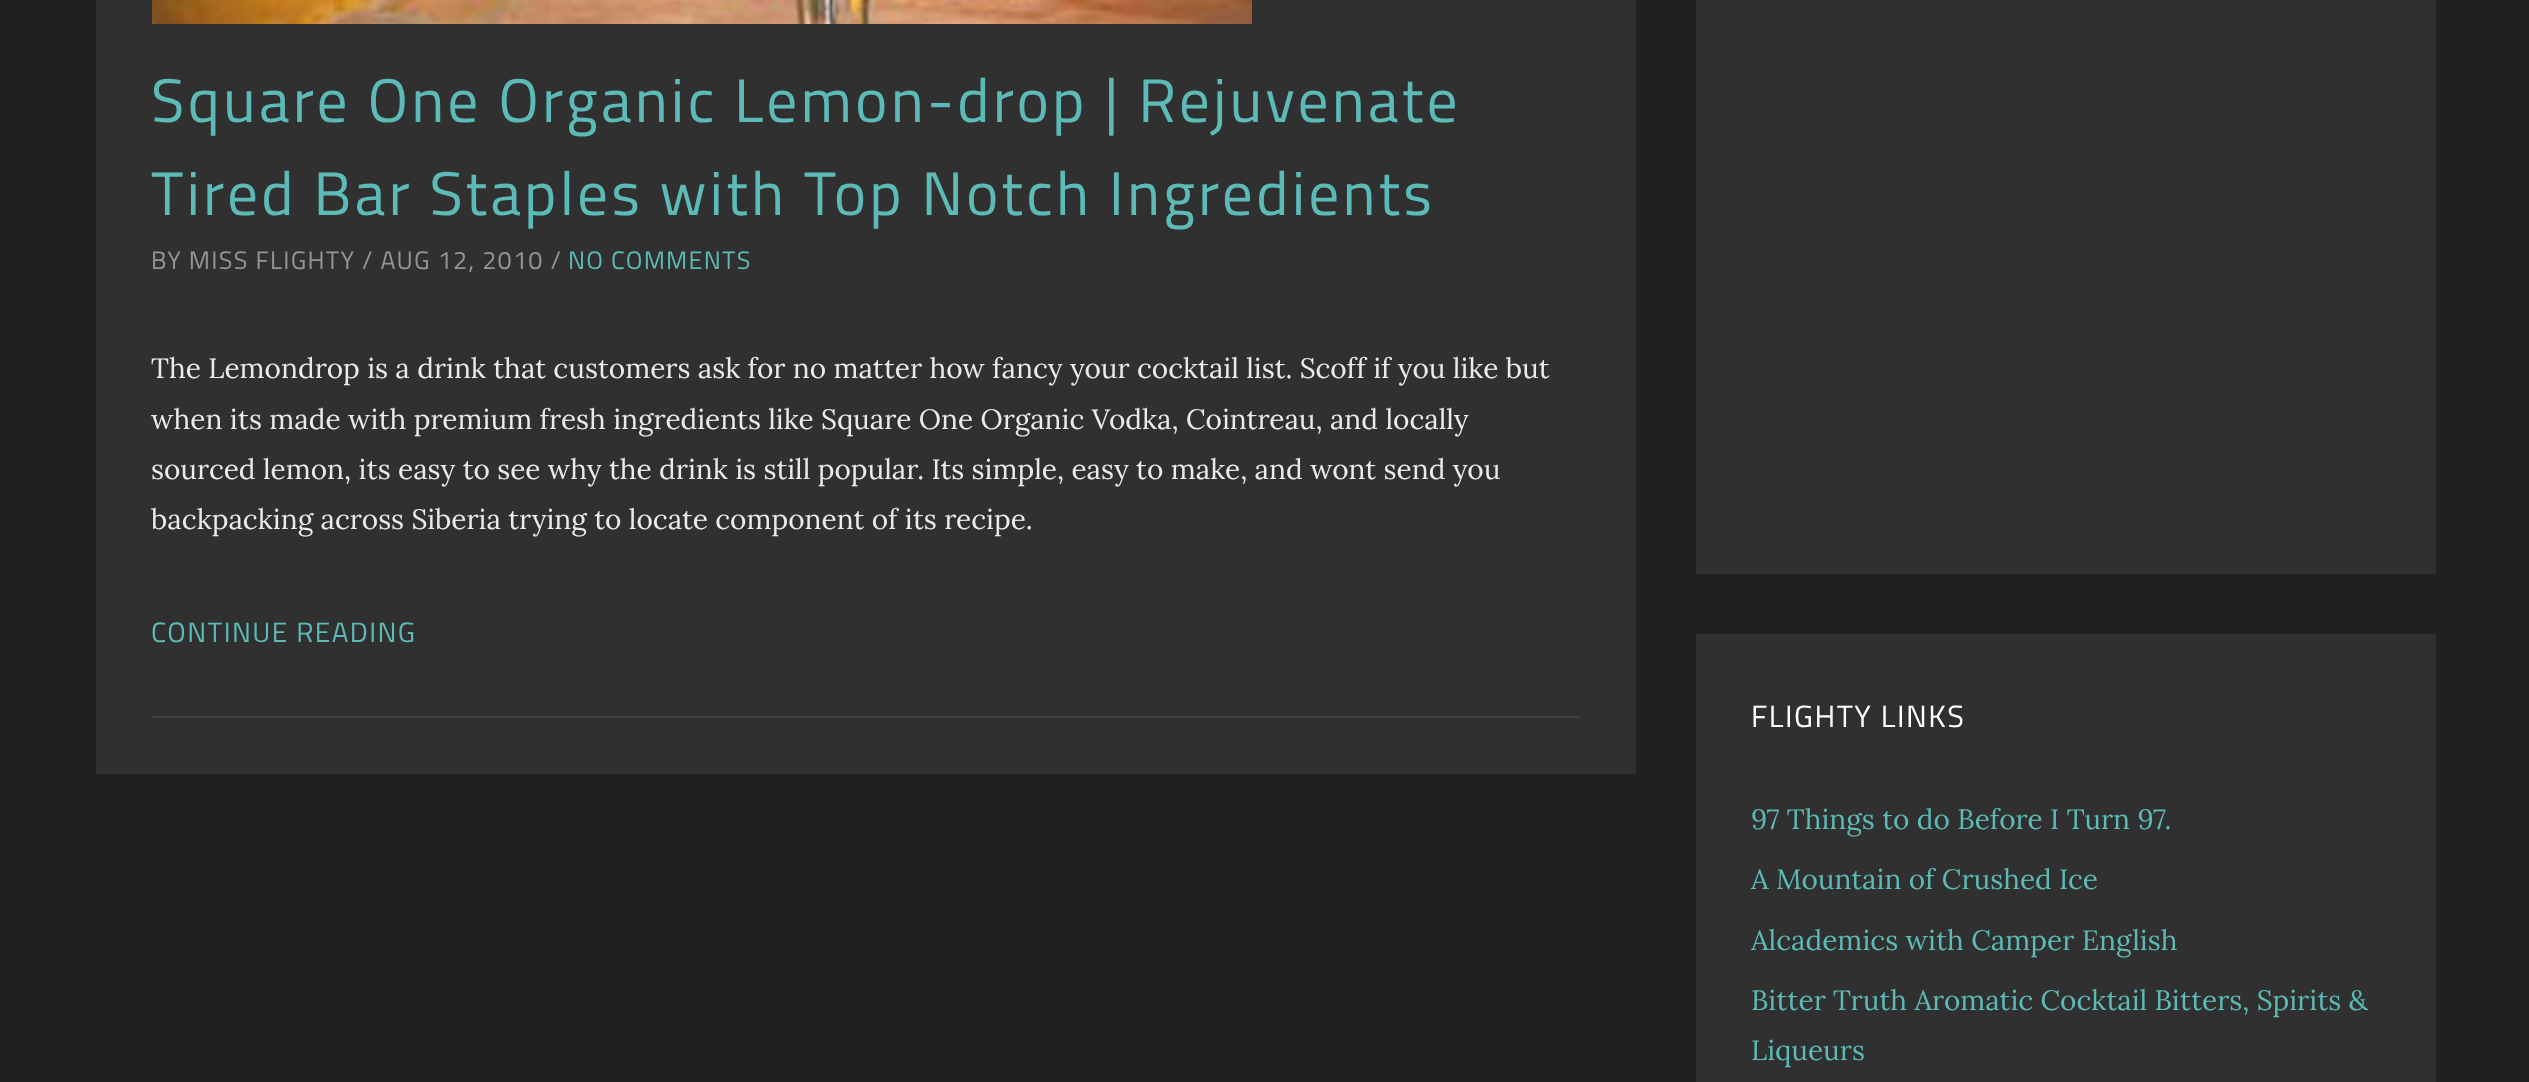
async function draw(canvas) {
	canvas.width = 2529;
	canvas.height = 1082;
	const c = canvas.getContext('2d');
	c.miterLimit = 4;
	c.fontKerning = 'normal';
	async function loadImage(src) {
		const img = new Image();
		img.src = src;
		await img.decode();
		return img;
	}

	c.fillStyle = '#202020';
	c.fillRect(0, 0, 2529, 1082);
	c.fillStyle = '#303030';
	c.fillRect(96, 0, 1540, 774);
	c.drawImage(await loadImage('img1.png'), 152, 0, 1100, 24);
	c.letterSpacing = '3.1px';
	c.font = '61.6px Titillium Web';
	c.fillStyle = '#5cbbb7';
	c.fillText('Square One Organic Lemon-drop | Rejuvenate', 151, 122);
	c.fillText('Tired Bar Staples with Top Notch Ingredients', 151, 215);
	c.letterSpacing = '1.25px';
	c.font = '25.25px Titillium Web';
	c.fillStyle = '#959595';
	c.fillText('BY MISS FLIGHTY / AUG 12, 2010 /', 151, 269);
	c.fillStyle = '#5cbbb7';
	c.fillText('NO COMMENTS', 568, 269);
	c.letterSpacing = '0px';
	c.font = '28px Lora';
	c.fillStyle = '#ebebeb';
	for (const [text, x, y] of [
		['The Lemondrop is a drink that customers ask for no matter how fancy your cocktail list. Scoff if you like but', 151, 378],
		['when its made with premium fresh ingredients like Square One Organic Vodka, Cointreau, and locally', 151, 429],
		['sourced lemon, its easy to see why the drink is still popular. Its simple, easy to make, and wont send you', 151, 479],
		['backpacking across Siberia trying to locate component of its recipe.', 151, 529],
	]) {
		c.fillText(text, x, y);
	}
	c.letterSpacing = '1.4px';
	c.font = '28px Titillium Web';
	c.fillStyle = '#5cbbb7';
	c.fillText('CONTINUE READING', 151, 642);
	for (const [x, y, w, h, color] of [
		[152, 716, 1428, 2, '#404040'],
		[1696, 0, 740, 574, '#303030'],
		[1696, 634, 740, 448, '#303030'],
	]) {
		c.fillStyle = color;
		c.fillRect(x, y, w, h);
	}
	c.letterSpacing = '1.5px';
	c.font = '30.75px Titillium Web';
	c.fillStyle = '#fff';
	c.fillText('FLIGHTY LINKS', 1751, 727);
	c.letterSpacing = '0px';
	c.font = '28px Lora';
	c.fillStyle = '#5cbbb7';
	for (const [text, x, y] of [
		['97 Things to do Before I Turn 97.', 1751, 829],
		['A Mountain of Crushed Ice', 1751, 889],
		['Alcademics with Camper English', 1751, 950],
		['Bitter Truth Aromatic Cocktail Bitters, Spirits &', 1751, 1010],
		['Liqueurs', 1751, 1060],
	]) {
		c.fillText(text, x, y);
	}
}

draw(document.querySelector('canvas'));
